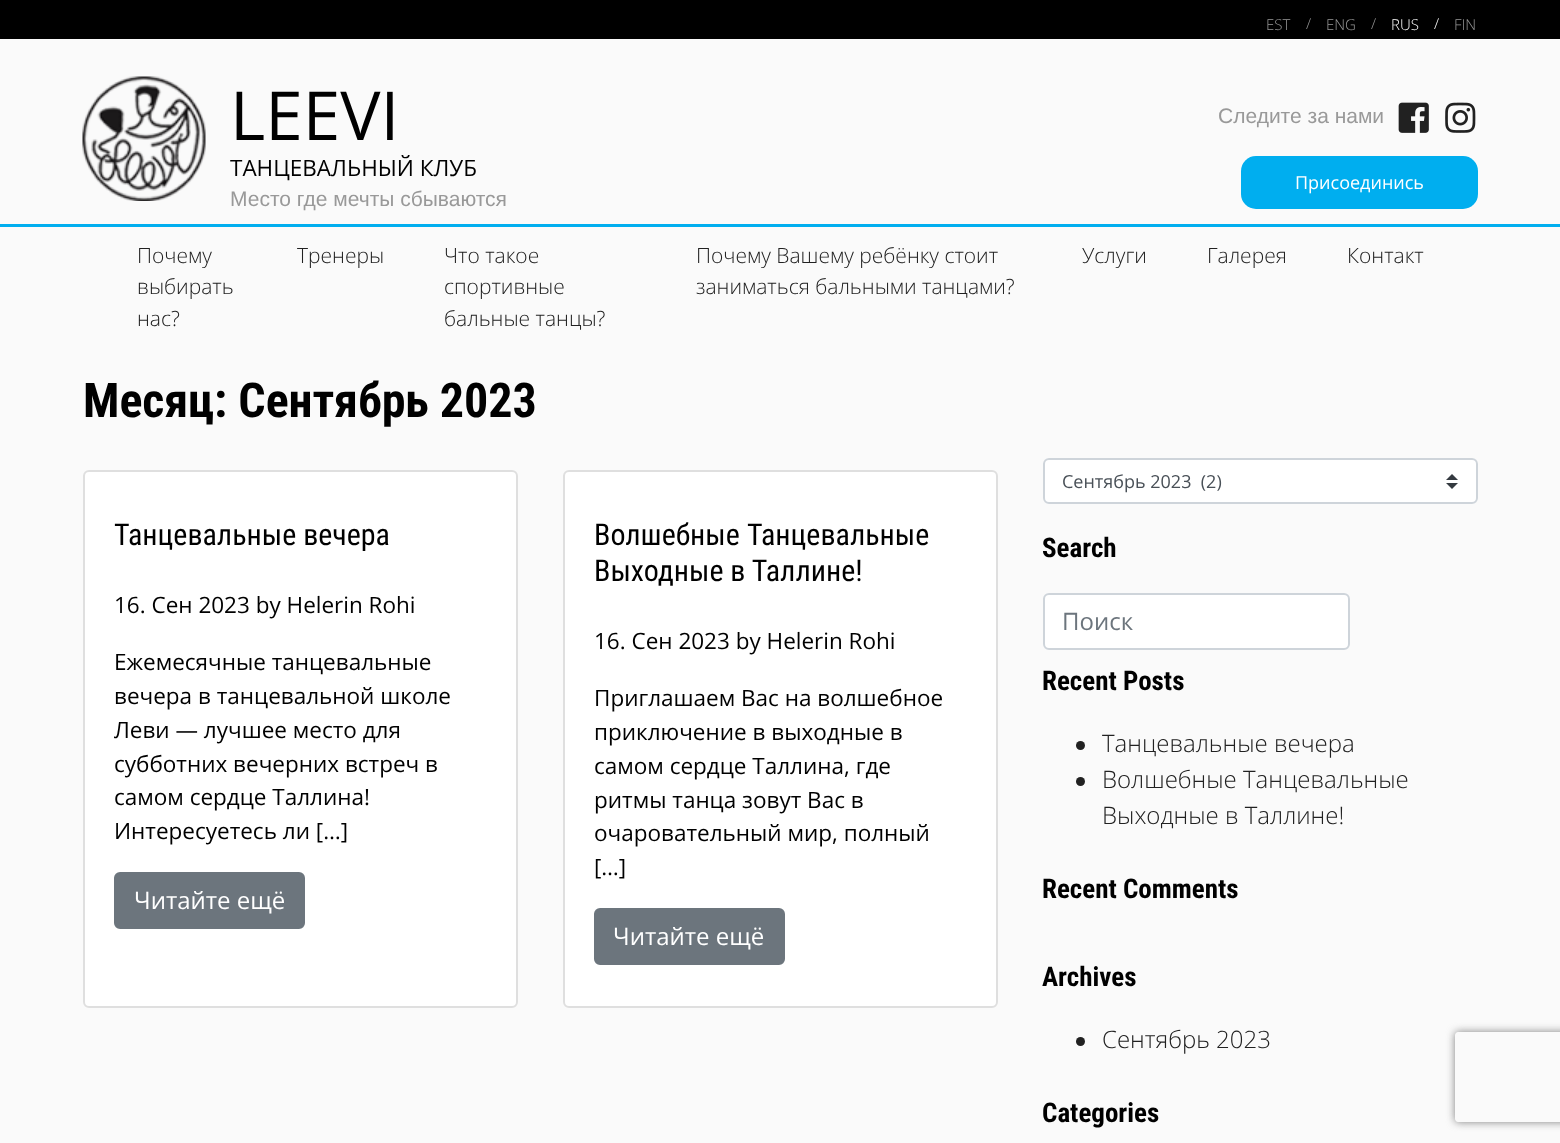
async function draw(canvas) {
	canvas.width = 1560;
	canvas.height = 1143;
	const c = canvas.getContext('2d');
	c.miterLimit = 4;
	c.fontKerning = 'normal';
	async function loadImage(src) {
		const img = new Image();
		img.src = src;
		await img.decode();
		return img;
	}

	c.fillStyle = '#fafafa';
	c.fillRect(0, 0, 1560, 1143);
	c.fillStyle = '#000';
	c.fillRect(0, 0, 1560, 39);
	c.font = '300 15px Open Sans';
	c.fillStyle = '#999';
	for (const [text, x, y] of [
		['EST', 1266, 30],
		['/', 1306, 29],
		['ENG', 1326, 30],
		['/', 1371, 29],
	]) {
		c.fillText(text, x, y);
	}
	c.fillStyle = '#fff';
	c.fillText('RUS', 1391, 30);
	c.fillText('/', 1434, 29);
	c.fillStyle = '#999';
	c.fillText('FIN', 1454, 30);
	c.drawImage(await loadImage('img1.png'), 82, 76, 124, 125);
	c.font = '67.5px Open Sans';
	c.fillStyle = '#000';
	c.fillText('LEEVI', 230, 140);
	c.font = '22.5px Open Sans';
	c.fillText('ТАНЦЕВАЛЬНЫЙ КЛУБ', 230, 176);
	c.font = '21px Liberation Sans';
	c.fillStyle = '#999';
	c.fillText('Место где мечты сбываются', 230, 206);
	c.fillText('Следите за нами', 1218, 123);
	c.drawImage(await loadImage('img2.png'), 1398, 102, 31, 31);
	c.drawImage(await loadImage('img3.png'), 1445, 102, 31, 31);
	c.fillStyle = '#00aeef';
	c.beginPath();
	c.roundRect(1241, 156, 237, 53, 15);
	c.fill();
	c.font = '18px Open Sans';
	c.fillStyle = '#fff';
	c.fillText('Присоединись', 1295, 189);
	c.fillStyle = '#00aeef';
	c.fillRect(0, 224, 1560, 3);
	c.font = '300 21px Open Sans';
	c.fillStyle = '#212121';
	for (const [text, x, y] of [
		['Почему', 137, 263],
		['выбирать', 137, 294],
		['нас?', 137, 326],
		['Тренеры', 297, 263],
		['Что такое', 444, 263],
		['спортивные', 444, 294],
		['бальные танцы?', 444, 326],
		['Почему Вашему ребёнку стоит', 696, 263],
		['заниматься бальными танцами?', 696, 294],
		['Услуги', 1082, 263],
		['Галерея', 1207, 263],
		['Контакт', 1347, 263],
	]) {
		c.fillText(text, x, y);
	}
	c.font = 'bold 48px Roboto Condensed';
	c.fillStyle = '#000';
	c.fillText('Месяц: Сентябрь 2023', 83, 417);
	c.fillStyle = '#fff';
	c.beginPath();
	c.roundRect(84, 471, 433, 536, 5);
	c.fill();
	c.strokeStyle = '#dfdfdf';
	c.lineWidth = 2;
	c.stroke();
	c.font = '30px Roboto Condensed';
	c.fillStyle = '#000';
	c.fillText('Танцевальные вечера', 114, 545);
	c.font = '22.5px Open Sans';
	for (const [text, x, y] of [
		['16. Сен 2023 by Helerin Rohi', 114, 613],
		['Ежемесячные танцевальные', 114, 670],
		['вечера в танцевальной школе', 114, 704],
		['Леви — лучшее место для', 114, 738],
		['субботних вечерних встреч в', 114, 772],
		['самом сердце Таллина!', 114, 805],
		['Интересуетесь ли […]', 114, 839],
	]) {
		c.fillText(text, x, y);
	}
	c.fillStyle = '#6c757d';
	c.beginPath();
	c.roundRect(115, 873, 189, 55, 5);
	c.fill();
	c.strokeStyle = '#6c757d';
	c.stroke();
	c.font = '24px Open Sans';
	c.fillStyle = '#fff';
	c.fillText('Читайте ещё', 134, 909);
	c.beginPath();
	c.roundRect(564, 471, 433, 536, 5);
	c.fill();
	c.strokeStyle = '#dfdfdf';
	c.stroke();
	c.wordSpacing = '1px';
	c.font = '30px Roboto Condensed';
	c.fillStyle = '#000';
	c.fillText('Волшебные Танцевальные', 594, 545);
	c.wordSpacing = '0px';
	c.fillText('Выходные в Таллине!', 594, 581);
	c.font = '22.5px Open Sans';
	for (const [text, x, y] of [
		['16. Сен 2023 by Helerin Rohi', 594, 649],
		['Приглашаем Вас на волшебное', 594, 706],
		['приключение в выходные в', 594, 740],
		['самом сердце Таллина, где', 594, 774],
		['ритмы танца зовут Вас в', 594, 808],
		['очаровательный мир, полный', 594, 841],
		['[…]', 594, 875],
	]) {
		c.fillText(text, x, y);
	}
	c.fillStyle = '#6c757d';
	c.beginPath();
	c.roundRect(595, 909, 189, 55, 5);
	c.fill();
	c.strokeStyle = '#6c757d';
	c.stroke();
	c.font = '24px Open Sans';
	c.fillStyle = '#fff';
	c.fillText('Читайте ещё', 613, 945);
	c.beginPath();
	c.roundRect(1043, 458, 435, 46, 6);
	c.fill();
	c.drawImage(await loadImage('img4.png'), 1446, 474, 12, 15);
	c.beginPath();
	c.roundRect(1044, 459, 433, 44, 5);
	c.strokeStyle = '#ced4da';
	c.stroke();
	c.font = '18px Open Sans';
	c.fillStyle = '#495057';
	c.fillText('Сентябрь 2023  (2)', 1062, 488);
	c.font = 'bold 27px Roboto Condensed';
	c.fillStyle = '#000';
	c.fillText('Search', 1042, 557);
	c.fillStyle = '#fff';
	c.beginPath();
	c.roundRect(1044, 594, 305, 55, 5);
	c.fill();
	c.stroke();
	c.font = '24px Open Sans';
	c.fillStyle = '#6c757d';
	c.fillText('Поиск', 1062, 630);
	c.font = 'bold 27px Roboto Condensed';
	c.fillStyle = '#000';
	c.fillText('Recent Posts', 1042, 690);
	c.fillStyle = '#212121';
	c.beginPath();
	c.arc(1080.5, 745.5, 4.5, 0, 2 * Math.PI);
	c.fill();
	c.font = '300 24px Open Sans';
	c.fillText('Танцевальные вечера', 1102, 752);
	c.beginPath();
	c.arc(1080.5, 781.5, 4.5, 0, 2 * Math.PI);
	c.fill();
	c.fillText('Волшебные Танцевальные', 1102, 788);
	c.fillText('Выходные в Таллине!', 1102, 824);
	c.font = 'bold 27px Roboto Condensed';
	c.fillStyle = '#000';
	c.fillText('Recent Comments', 1042, 898);
	c.fillText('Archives', 1042, 986);
	c.fillStyle = '#212121';
	c.beginPath();
	c.arc(1080.5, 1041.5, 4.5, 0, 2 * Math.PI);
	c.fill();
	c.font = '300 24px Open Sans';
	c.fillText('Сентябрь 2023', 1102, 1048);
	c.font = 'bold 27px Roboto Condensed';
	c.fillStyle = '#000';
	c.fillText('Categories', 1042, 1122);
	c.save();
	c.beginPath();
	c.moveTo(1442, 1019);
	c.lineTo(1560, 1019);
	c.lineTo(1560, 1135);
	c.lineTo(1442, 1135);
	c.closePath();
	c.moveTo(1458, 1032);
	c.lineTo(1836, 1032);
	c.bezierCurveTo(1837.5, 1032, 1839, 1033.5, 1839, 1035);
	c.lineTo(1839, 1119);
	c.bezierCurveTo(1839, 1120.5, 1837.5, 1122, 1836, 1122);
	c.lineTo(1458, 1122);
	c.bezierCurveTo(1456.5, 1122, 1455, 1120.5, 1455, 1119);
	c.lineTo(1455, 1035);
	c.bezierCurveTo(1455, 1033.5, 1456.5, 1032, 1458, 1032);
	c.closePath();
	c.clip('evenodd');
	c.fillStyle = '#808080';
	c.filter = 'blur(4px)';
	c.beginPath();
	c.roundRect(1455, 1032, 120, 90, 3);
	c.fill();
	c.filter = 'none';
	c.restore();
}

draw(document.querySelector('canvas'));
